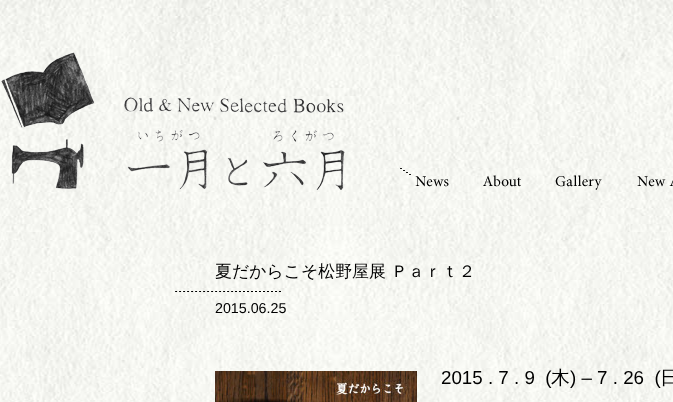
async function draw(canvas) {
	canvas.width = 673;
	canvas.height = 402;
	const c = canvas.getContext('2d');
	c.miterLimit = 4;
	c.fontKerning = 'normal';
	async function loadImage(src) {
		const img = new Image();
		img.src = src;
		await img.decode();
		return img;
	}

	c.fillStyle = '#fff';
	c.fillRect(0, 0, 673, 402);
	c.drawImage(await loadImage('img1.png'), 0, 0, 673, 402);
	c.drawImage(await loadImage('img2.png'), 1, 52, 344, 138);
	c.drawImage(await loadImage('img3.png'), 400, 168, 49, 19);
	c.drawImage(await loadImage('img4.png'), 483, 175, 38, 12);
	c.drawImage(await loadImage('img5.png'), 555, 175, 47, 15);
	c.drawImage(await loadImage('img6.png'), 637, 176, 36, 11);
	c.drawImage(await loadImage('img7.png'), 175, 291, 106, 1);
	c.font = '500 16.9px WenQuanYi Zen Hei';
	c.fillStyle = '#000';
	c.fillText('夏だからこそ松野屋展 Ｐａｒｔ２', 215, 277);
	c.font = '14.25px Liberation Sans';
	c.fillText('2015.06.25', 215, 313);
	c.drawImage(await loadImage('img8.png'), 215, 371, 202, 31);
	c.font = '18.75px Liberation Sans';
	c.fillText('2015 . 7 . 9  (', 441, 384);
	c.font = '500 18.75px WenQuanYi Zen Hei';
	c.fillText('木', 551, 384);
	c.font = '18.75px Liberation Sans';
	c.fillText(') – 7 . 26  (', 570, 384);
	c.font = '500 18.75px WenQuanYi Zen Hei';
	c.fillText('日', 660, 384);
}

draw(document.querySelector('canvas'));
